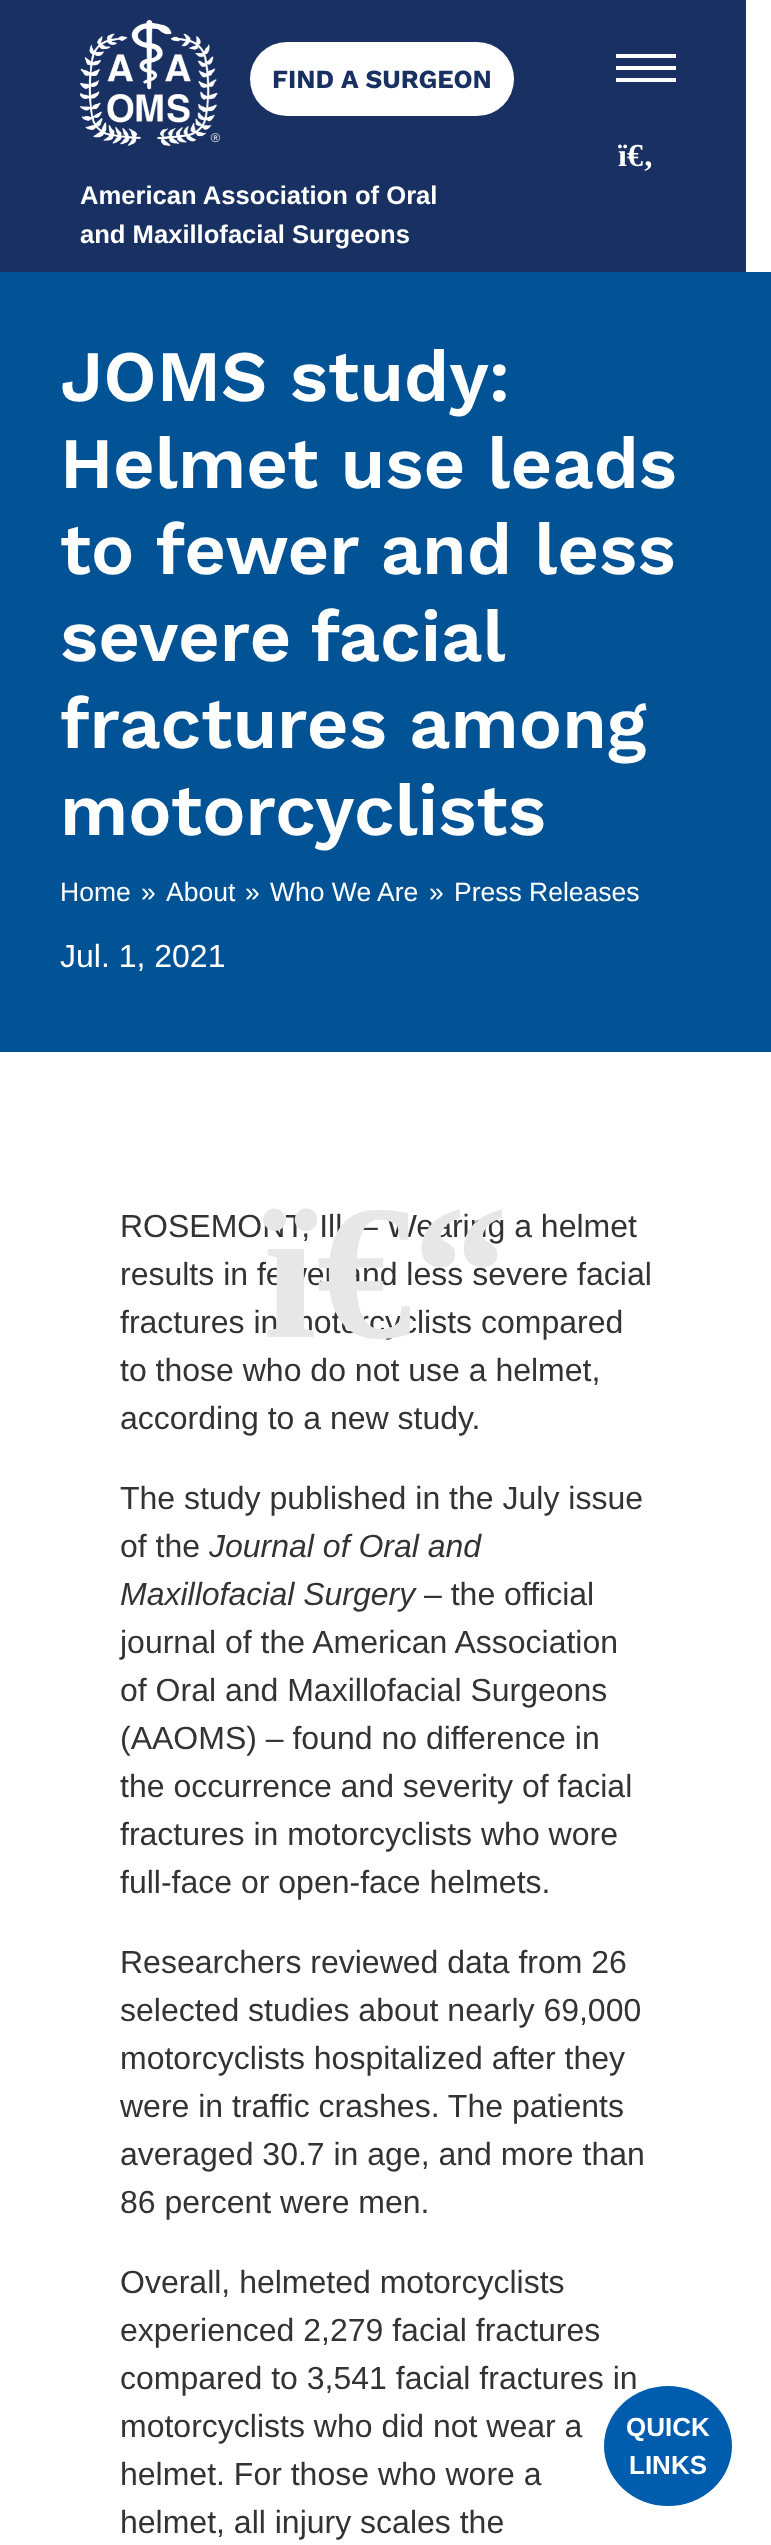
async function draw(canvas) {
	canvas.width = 771;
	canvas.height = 2545;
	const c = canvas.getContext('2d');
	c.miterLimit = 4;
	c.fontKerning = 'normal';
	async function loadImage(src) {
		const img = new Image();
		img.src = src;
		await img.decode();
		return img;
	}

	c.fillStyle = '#fff';
	c.fillRect(0, 0, 771, 2545);
	c.fillStyle = '#193062';
	c.fillRect(0, 0, 746, 272);
	c.drawImage(await loadImage('img1.png'), 80, 20, 140, 126);
	c.fillStyle = '#fff';
	c.beginPath();
	c.roundRect(250, 42, 264, 74, 37);
	c.fill();
	c.font = 'bold 26px Work Sans';
	c.fillStyle = '#193062';
	c.fillText('FIND A SURGEON', 272, 88);
	c.font = 'bold 25.6px Liberation Sans';
	c.fillStyle = '#fff';
	c.fillText('American Association of Oral', 80, 204);
	c.fillText('and Maxillofacial Surgeons', 80, 243);
	for (const [x, y, w, h, color] of [
		[616, 66, 60, 4, '#fff'],
		[616, 54, 60, 4, '#fff'],
		[616, 78, 60, 4, '#fff'],
	]) {
		c.fillStyle = color;
		c.fillRect(x, y, w, h);
	}
	c.font = 'bold 32px Liberation Serif';
	c.fillText('ï€‚', 618, 166);
	c.fillStyle = '#025395';
	c.fillRect(0, 272, 771, 780);
	c.font = '600 72.25px Work Sans';
	c.fillStyle = '#fff';
	for (const [text, x, y] of [
		['JOMS study:', 60, 401],
		['Helmet use leads', 60, 488],
		['to fewer and less', 60, 574],
	]) {
		c.fillText(text, x, y);
	}
	c.wordSpacing = '-2px';
	c.fillText('severe facial', 60, 661);
	c.wordSpacing = '0px';
	c.fillText('fractures among', 60, 748);
	c.fillText('motorcyclists', 60, 835);
	c.font = '26.5px Liberation Sans';
	for (const [text, x, y] of [
		['Home', 60, 901],
		['»', 141, 901],
		['About', 166, 901],
		['»', 245, 901],
		['Who We Are', 270, 901],
		['»', 429, 901],
		['Press Releases', 454, 901],
	]) {
		c.fillText(text, x, y);
	}
	c.font = '32px Liberation Sans';
	c.fillText('Jul. 1, 2021', 60, 967);
	c.fillStyle = '#333';
	for (const [text, x, y] of [
		['ROSEMONT, Ill. – Wearing a helmet', 120, 1237],
		['results in fewer and less severe facial', 120, 1285],
		['fractures in motorcyclists compared', 120, 1333],
		['to those who do not use a helmet,', 120, 1381],
		['according to a new study.', 120, 1429],
		['The study published in the July issue', 120, 1509],
		['of the', 120, 1557],
	]) {
		c.fillText(text, x, y);
	}
	c.font = 'italic 32px Liberation Sans';
	c.fillText('Journal of Oral and', 209, 1557);
	c.fillText('Maxillofacial Surgery', 120, 1605);
	c.font = '32px Liberation Sans';
	for (const [text, x, y] of [
		['– the official', 424, 1605],
		['journal of the American Association', 120, 1653],
		['of Oral and Maxillofacial Surgeons', 120, 1701],
		['(AAOMS) – found no difference in', 120, 1749],
		['the occurrence and severity of facial', 120, 1797],
		['fractures in motorcyclists who wore', 120, 1845],
		['full-face or open-face helmets.', 120, 1893],
		['Researchers reviewed data from 26', 120, 1973],
		['selected studies about nearly 69,000', 120, 2021],
		['motorcyclists hospitalized after they', 120, 2069],
		['were in traffic crashes. The patients', 120, 2117],
		['averaged 30.7 in age, and more than', 120, 2165],
		['86 percent were men.', 120, 2213],
		['Overall, helmeted motorcyclists', 120, 2293],
		['experienced 2,279 facial fractures', 120, 2341],
		['compared to 3,541 facial fractures in', 120, 2389],
		['motorcyclists who did not wear a', 120, 2437],
		['helmet. For those who wore a', 120, 2485],
		['helmet, all injury scales the', 120, 2533],
	]) {
		c.fillText(text, x, y);
	}
	c.fillStyle = '#005cac';
	c.beginPath();
	c.ellipse(668, 2446, 64, 60, 0, 0, 2 * Math.PI);
	c.fill();
	c.font = 'bold 26px Liberation Sans';
	c.fillStyle = '#fff';
	c.fillText('QUICK', 626, 2436);
	c.fillText('LINKS', 629, 2474);
	c.font = 'bold 192px Liberation Serif';
	c.fillStyle = '#e7e7e7';
	c.fillText('ï€“', 263, 1337);
}

draw(document.querySelector('canvas'));
